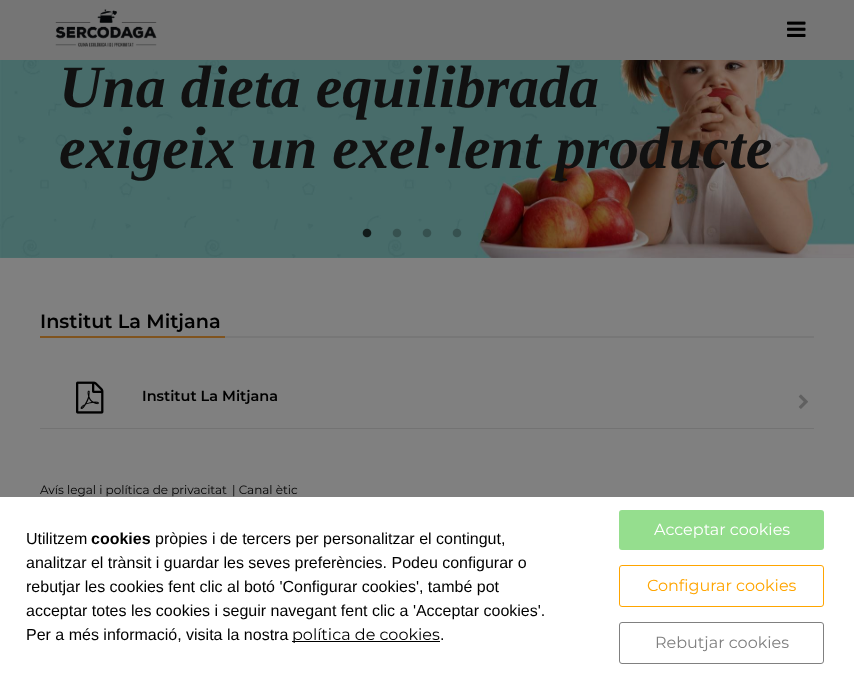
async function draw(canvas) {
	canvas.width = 854;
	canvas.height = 677;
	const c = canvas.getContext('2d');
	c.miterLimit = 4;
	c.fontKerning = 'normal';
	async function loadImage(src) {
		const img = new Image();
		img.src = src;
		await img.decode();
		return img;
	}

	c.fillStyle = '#808080';
	c.fillRect(0, 0, 854, 677);
	c.fillStyle = '#757575';
	c.fillRect(0, 0, 854, 60);
	c.drawImage(await loadImage('img1.png'), 55, 9, 102, 38);
	c.drawImage(await loadImage('img2.png'), 787, 21, 19, 16);
	c.drawImage(await loadImage('img3.png'), 0, 60, 854, 198);
	c.font = 'italic bold 60px Liberation Serif';
	c.fillStyle = '#111';
	c.fillText('Una dieta equilibrada', 59, 107);
	c.fillText('exigeix un exel·lent producte', 59, 168);
	c.drawImage(await loadImage('img4.png'), 362, 228, 10, 10);
	c.drawImage(await loadImage('img5.png'), 392, 228, 10, 10);
	c.drawImage(await loadImage('img5.png'), 422, 228, 10, 10);
	c.drawImage(await loadImage('img6.png'), 452, 228, 10, 10);
	c.drawImage(await loadImage('img7.png'), 482, 228, 10, 10);
	c.fillStyle = '#777';
	c.fillRect(225, 336, 589, 2);
	c.fillStyle = '#80541f';
	c.fillRect(40, 336, 185, 2);
	c.font = '600 19.25px Montserrat';
	c.fillStyle = '#000';
	c.fillText('Institut La Mitjana', 40, 328);
	c.drawImage(await loadImage('img8.png'), 76, 381, 28, 33);
	c.font = '600 14.5px Montserrat';
	c.fillText('Institut La Mitjana', 142, 401);
	c.drawImage(await loadImage('img9.png'), 798, 394, 10, 15);
	c.fillStyle = '#737373';
	c.fillRect(40, 428, 774, 1);
	c.font = '12px Montserrat';
	c.fillStyle = '#000';
	c.fillText('Avís legal i política de privacitat', 40, 494);
	c.fillText('| Canal ètic', 232, 494);
	c.fillStyle = '#fff';
	c.fillRect(0, 497, 854, 180);
	c.font = '16px Liberation Sans';
	c.fillStyle = '#000';
	c.fillText('Utilitzem', 26, 544);
	c.font = 'bold 16px Liberation Sans';
	c.fillText('cookies', 91, 544);
	c.font = '16px Liberation Sans';
	for (const [text, x, y] of [
		['pròpies i de tercers per personalitzar el contingut,', 155, 544],
		['analitzar el trànsit i guardar les seves preferències. Podeu configurar o', 26, 568],
		['rebutjar les cookies fent clic al botó \'Configurar cookies\', també pot', 26, 592],
		['acceptar totes les cookies i seguir navegant fent clic a \'Acceptar cookies\'.', 26, 616],
		['Per a més informació, visita la nostra', 26, 640],
	]) {
		c.fillText(text, x, y);
	}
	c.fillRect(292, 641, 148, 1);
	c.font = '16px Montserrat';
	c.fillText('política de cookies', 292, 640);
	c.font = '16px Liberation Sans';
	c.fillText('.', 440, 640);
	c.fillStyle = '#95de8e';
	c.beginPath();
	c.roundRect(619, 510, 205, 40, 3);
	c.fill();
	c.font = '16px Montserrat';
	c.fillStyle = '#fff';
	c.fillText('Acceptar cookies', 654, 535);
	c.beginPath();
	c.roundRect(619.5, 565.5, 204, 41, 2.5);
	c.strokeStyle = '#ffa500';
	c.stroke();
	c.fillStyle = '#ffa500';
	c.fillText('Configurar cookies', 647, 591);
	c.beginPath();
	c.roundRect(619.5, 622.5, 204, 41, 2.5);
	c.strokeStyle = '#808080';
	c.stroke();
	c.fillStyle = '#808080';
	c.fillText('Rebutjar cookies', 655, 648);
}

draw(document.querySelector('canvas'));
